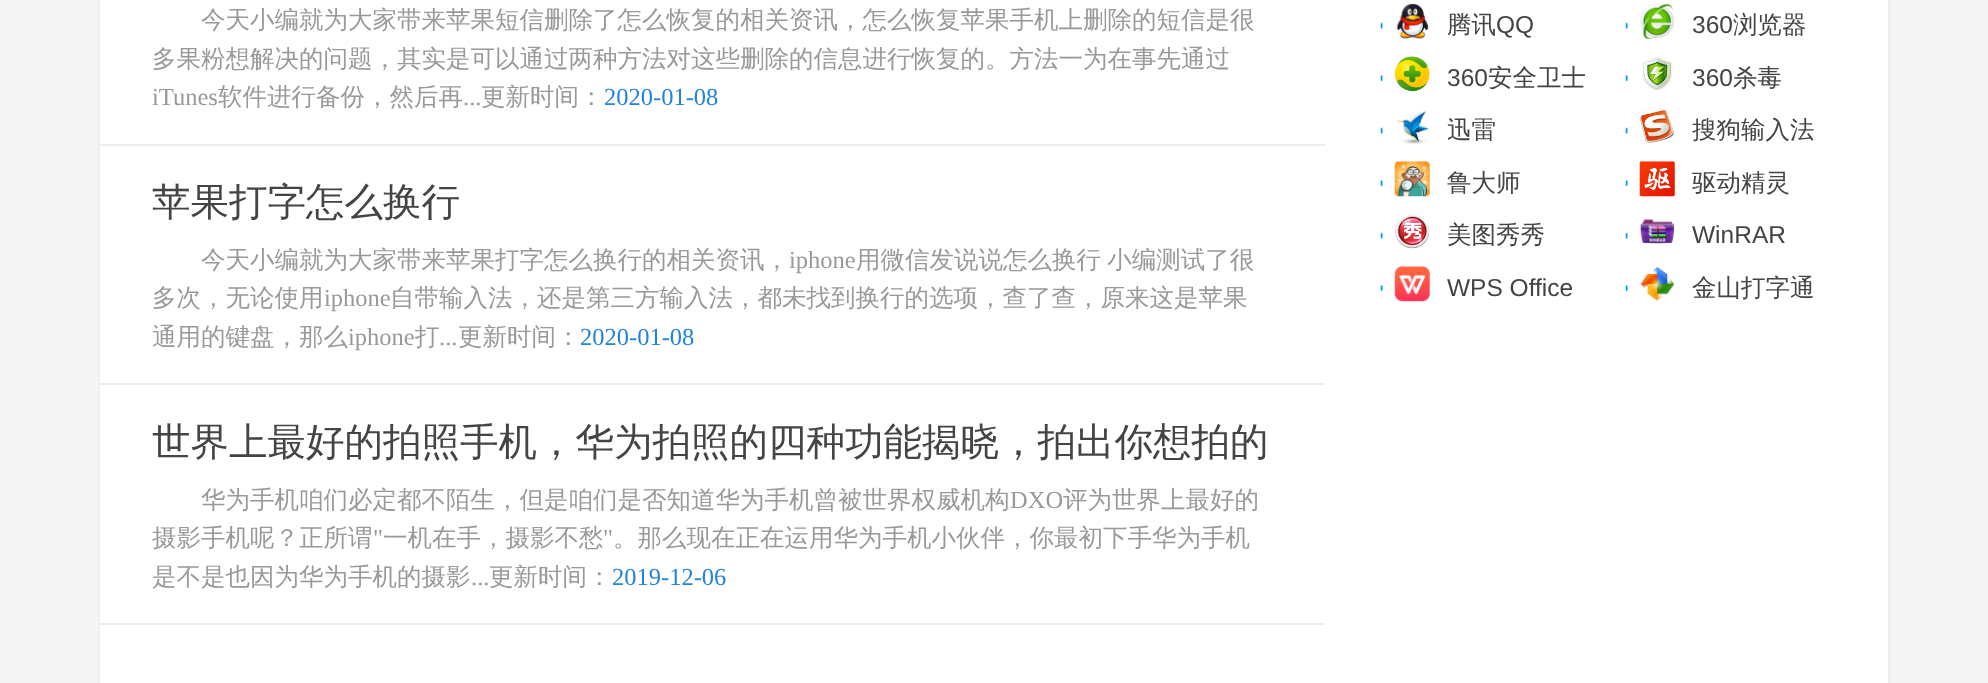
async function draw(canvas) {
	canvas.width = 1988;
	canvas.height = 683;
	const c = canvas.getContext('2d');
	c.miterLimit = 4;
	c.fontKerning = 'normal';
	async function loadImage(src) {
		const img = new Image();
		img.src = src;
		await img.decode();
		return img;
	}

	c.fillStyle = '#f5f5f5';
	c.fillRect(0, 0, 1988, 683);
	c.fillStyle = '#fff';
	c.beginPath();
	c.rect(99, -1, 1790, 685);
	c.fill();
	c.strokeStyle = '#eee';
	c.lineWidth = 2;
	c.stroke();
	c.fillStyle = '#eee';
	c.fillRect(100, 144, 1225, 2);
	c.font = '500 24.5px WenQuanYi Zen Hei';
	c.fillStyle = '#999';
	c.fillText('今天小编就为大家带来苹果短信删除了怎么恢复的相关资讯，怎么恢复苹果手机上删除的短信是很', 201, 28);
	c.fillText('多果粉想解决的问题，其实是可以通过两种方法对这些删除的信息进行恢复的。方法一为在事先通过', 152, 67);
	c.font = '24.5px Liberation Serif';
	c.fillText('iTunes', 152, 105);
	c.font = '500 24.5px WenQuanYi Zen Hei';
	c.fillText('软件进行备份，然后再', 218, 105);
	c.font = '24.5px Liberation Serif';
	c.fillText('...', 463, 105);
	c.font = '500 24.5px WenQuanYi Zen Hei';
	c.fillText('更新时间：', 481, 105);
	c.font = '24.5px Liberation Serif';
	c.fillStyle = '#2383dd';
	c.fillText('2020-01-08', 604, 105);
	c.fillStyle = '#eee';
	c.fillRect(100, 383, 1225, 2);
	c.font = '500 38.5px WenQuanYi Zen Hei';
	c.fillStyle = '#444';
	c.fillText('苹果打字怎么换行', 152, 215);
	c.font = '500 24.5px WenQuanYi Zen Hei';
	c.fillStyle = '#999';
	c.fillText('今天小编就为大家带来苹果打字怎么换行的相关资讯，', 201, 268);
	c.font = '24.5px Liberation Serif';
	c.fillText('iphone', 789, 268);
	c.wordSpacing = '-1px';
	c.font = '500 24.5px WenQuanYi Zen Hei';
	c.fillText('用微信发说说怎么换行 小编测试了很', 856, 268);
	c.wordSpacing = '0px';
	c.fillText('多次，无论使用', 152, 306);
	c.font = '24.5px Liberation Serif';
	c.fillText('iphone', 324, 306);
	c.font = '500 24.5px WenQuanYi Zen Hei';
	c.fillText('自带输入法，还是第三方输入法，都未找到换行的选项，查了查，原来这是苹果', 390, 306);
	c.fillText('通用的键盘，那么', 152, 345);
	c.font = '24.5px Liberation Serif';
	c.fillText('iphone', 348, 345);
	c.font = '500 24.5px WenQuanYi Zen Hei';
	c.fillText('打', 415, 345);
	c.font = '24.5px Liberation Serif';
	c.fillText('...', 439, 345);
	c.font = '500 24.5px WenQuanYi Zen Hei';
	c.fillText('更新时间：', 458, 345);
	c.font = '24.5px Liberation Serif';
	c.fillStyle = '#2383dd';
	c.fillText('2020-01-08', 580, 345);
	c.fillStyle = '#eee';
	c.fillRect(100, 623, 1225, 2);
	c.font = '500 38.5px WenQuanYi Zen Hei';
	c.fillStyle = '#444';
	c.fillText('世界上最好的拍照手机，华为拍照的四种功能揭晓，拍出你想拍的', 152, 455);
	c.font = '500 24.5px WenQuanYi Zen Hei';
	c.fillStyle = '#999';
	c.fillText('华为手机咱们必定都不陌生，但是咱们是否知道华为手机曾被世界权威机构', 201, 508);
	c.font = '24.5px Liberation Serif';
	c.fillText('DXO', 1010, 508);
	c.font = '500 24.5px WenQuanYi Zen Hei';
	c.fillText('评为世界上最好的', 1063, 508);
	c.fillText('摄影手机呢？正所谓', 152, 546);
	c.font = '24.5px Liberation Serif';
	c.fillText('"', 373, 546);
	c.font = '500 24.5px WenQuanYi Zen Hei';
	c.fillText('一机在手，摄影不愁', 383, 546);
	c.font = '24.5px Liberation Serif';
	c.fillText('"', 603, 546);
	c.font = '500 24.5px WenQuanYi Zen Hei';
	c.fillText('。那么现在正在运用华为手机小伙伴，你最初下手华为手机', 613, 546);
	c.fillText('是不是也因为华为手机的摄影', 152, 585);
	c.font = '24.5px Liberation Serif';
	c.fillText('...', 471, 585);
	c.font = '500 24.5px WenQuanYi Zen Hei';
	c.fillText('更新时间：', 489, 585);
	c.font = '24.5px Liberation Serif';
	c.fillStyle = '#2383dd';
	c.fillText('2019-12-06', 612, 585);
	c.drawImage(await loadImage('img1.png'), 1380, 22, 3, 7);
	c.drawImage(await loadImage('img2.png'), 1396, 3, 33, 36);
	c.font = '500 24.5px WenQuanYi Zen Hei';
	c.fillStyle = '#444';
	c.fillText('腾讯', 1447, 33);
	c.font = '24.5px Liberation Sans';
	c.fillText('QQ', 1496, 33);
	c.drawImage(await loadImage('img1.png'), 1625, 22, 3, 7);
	c.drawImage(await loadImage('img3.png'), 1639, 3, 35, 36);
	c.fillText('360', 1692, 33);
	c.font = '500 24.5px WenQuanYi Zen Hei';
	c.fillText('浏览器', 1733, 33);
	c.drawImage(await loadImage('img4.png'), 1380, 75, 3, 7);
	c.drawImage(await loadImage('img5.png'), 1394, 56, 36, 36);
	c.font = '24.5px Liberation Sans';
	c.fillText('360', 1447, 86);
	c.font = '500 24.5px WenQuanYi Zen Hei';
	c.fillText('安全卫士', 1488, 86);
	c.drawImage(await loadImage('img4.png'), 1625, 75, 3, 7);
	c.drawImage(await loadImage('img6.png'), 1642, 57, 31, 34);
	c.font = '24.5px Liberation Sans';
	c.fillText('360', 1692, 86);
	c.font = '500 24.5px WenQuanYi Zen Hei';
	c.fillText('杀毒', 1733, 86);
	c.drawImage(await loadImage('img1.png'), 1380, 127, 3, 7);
	c.drawImage(await loadImage('img7.png'), 1396, 110, 33, 34);
	c.fillText('迅雷', 1447, 138);
	c.drawImage(await loadImage('img1.png'), 1625, 127, 3, 7);
	c.drawImage(await loadImage('img8.png'), 1639, 109, 35, 34);
	c.fillText('搜狗输入法', 1692, 138);
	c.drawImage(await loadImage('img4.png'), 1380, 180, 3, 7);
	c.drawImage(await loadImage('img9.png'), 1394, 161, 36, 36);
	c.fillText('鲁大师', 1447, 191);
	c.drawImage(await loadImage('img4.png'), 1625, 180, 3, 7);
	c.drawImage(await loadImage('img10.png'), 1639, 161, 36, 36);
	c.fillText('驱动精灵', 1692, 191);
	c.drawImage(await loadImage('img1.png'), 1380, 232, 3, 7);
	c.drawImage(await loadImage('img11.png'), 1395, 214, 35, 35);
	c.fillText('美图秀秀', 1447, 243);
	c.drawImage(await loadImage('img1.png'), 1625, 232, 3, 7);
	c.drawImage(await loadImage('img12.png'), 1640, 219, 35, 25);
	c.font = '24.5px Liberation Sans';
	c.fillText('WinRAR', 1692, 243);
	c.drawImage(await loadImage('img4.png'), 1380, 285, 3, 7);
	c.drawImage(await loadImage('img13.png'), 1394, 266, 36, 36);
	c.fillText('WPS Office', 1447, 296);
	c.drawImage(await loadImage('img4.png'), 1625, 285, 3, 7);
	c.drawImage(await loadImage('img14.png'), 1640, 267, 35, 35);
	c.font = '500 24.5px WenQuanYi Zen Hei';
	c.fillText('金山打字通', 1692, 296);
}

draw(document.querySelector('canvas'));
